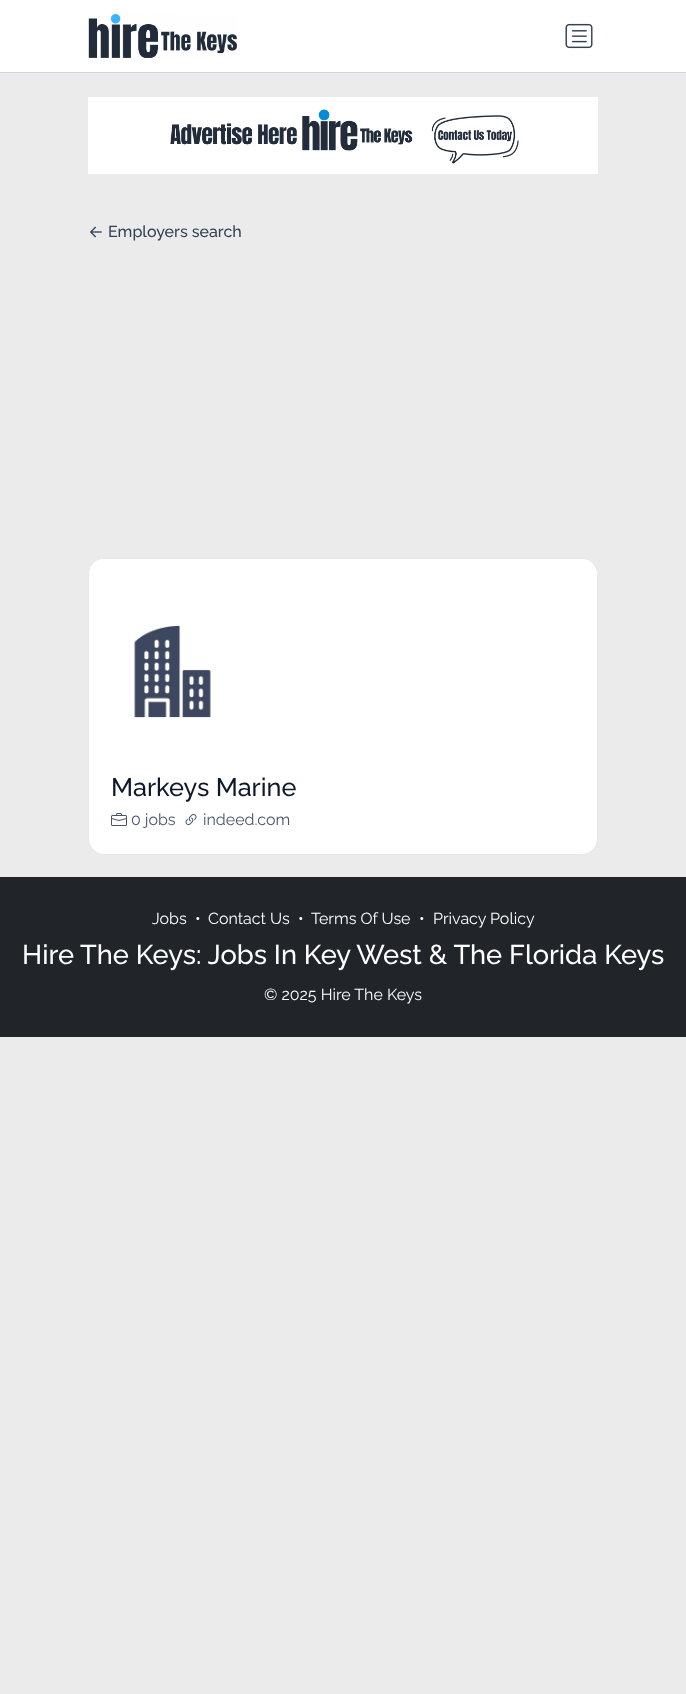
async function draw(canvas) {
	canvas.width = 686;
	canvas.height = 1694;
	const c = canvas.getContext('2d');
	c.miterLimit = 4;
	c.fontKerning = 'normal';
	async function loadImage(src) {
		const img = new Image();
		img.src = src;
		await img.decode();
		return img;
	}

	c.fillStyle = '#ebebeb';
	c.fillRect(0, 0, 686, 1694);
	c.fillStyle = '#fff';
	c.fillRect(0, 0, 686, 72);
	c.fillStyle = '#cbd5e1';
	c.fillRect(0, 72, 686, 1);
	c.drawImage(await loadImage('img1.png'), 88, 14, 149, 44);
	c.drawImage(await loadImage('img2.png'), 565, 23, 28, 26);
	c.drawImage(await loadImage('img3.png'), 88, 97, 510, 77);
	c.drawImage(await loadImage('img4.png'), 90, 226, 12, 12);
	c.font = '500 16px Raleway';
	c.fillStyle = '#334155';
	c.fillText('Employers search', 108, 237);
	c.fillStyle = '#fff';
	c.beginPath();
	c.roundRect(88.5, 558.5, 509, 296, 15.5);
	c.fill();
	c.strokeStyle = '#e2e8f0';
	c.stroke();
	c.beginPath();
	c.roundRect(89, 559, 508, 150, [15, 15, 0, 0]);
	c.fill();
	c.drawImage(await loadImage('img5.png'), 134, 625, 77, 93);
	c.font = '500 25.25px Raleway';
	c.fillStyle = '#0f172a';
	c.fillText('Markeys Marine', 111, 796);
	c.drawImage(await loadImage('img6.png'), 111, 813, 16, 13);
	c.font = '16px Raleway';
	c.fillStyle = '#475569';
	c.fillText('0 jobs', 131, 825);
	c.drawImage(await loadImage('img7.png'), 185, 814, 12, 11);
	c.fillText('indeed.com', 203, 825);
	c.fillStyle = '#212529';
	c.fillRect(0, 877, 686, 160);
	c.fillStyle = '#fff';
	for (const [text, x, y] of [
		['Jobs', 152, 924],
		['•', 195, 924],
		['Contact Us', 208, 924],
		['•', 298, 924],
		['Terms Of Use', 311, 924],
		['•', 419, 924],
		['Privacy Policy', 433, 924],
	]) {
		c.fillText(text, x, y);
	}
	c.font = '500 27.2px Raleway';
	c.fillText('Hire The Keys: Jobs In Key West & The Florida Keys', 22, 964);
	c.font = '16px Raleway';
	c.fillText('© 2025 Hire The Keys', 264, 1000);
}

draw(document.querySelector('canvas'));
